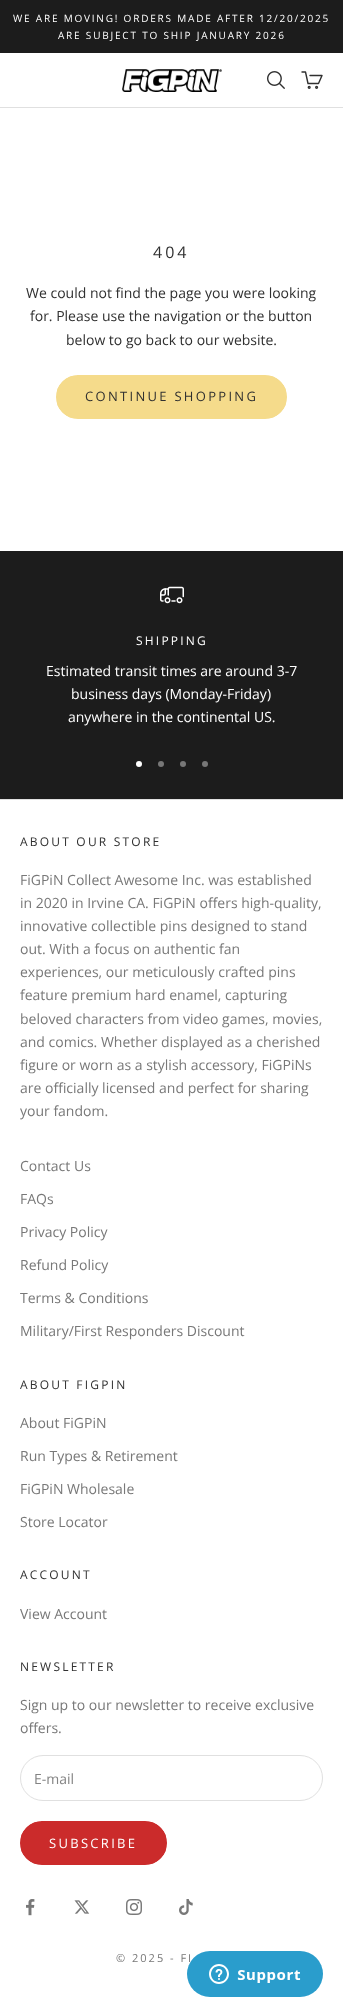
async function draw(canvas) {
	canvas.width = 343;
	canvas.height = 2011;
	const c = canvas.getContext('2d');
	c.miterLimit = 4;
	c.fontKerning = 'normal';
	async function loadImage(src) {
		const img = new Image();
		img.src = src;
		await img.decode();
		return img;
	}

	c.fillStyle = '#fff';
	c.fillRect(0, 0, 343, 2011);
	c.fillStyle = '#1c1c1c';
	c.fillRect(0, 0, 343, 53);
	c.letterSpacing = '1.8px';
	c.font = '10px Open Sans';
	c.fillStyle = '#fff';
	c.fillText('WE ARE MOVING! ORDERS MADE AFTER 12/20/2025', 13, 22);
	c.fillText('ARE SUBJECT TO SHIP JANUARY 2026', 58, 39);
	c.fillStyle = '#e0e0e0';
	c.fillRect(0, 107, 343, 1);
	c.drawImage(await loadImage('img1.png'), 122, 69, 100, 23);
	c.drawImage(await loadImage('img2.png'), 267, 71, 18, 18);
	c.beginPath();
	c.moveTo(310, 75.5);
	c.lineTo(322, 75.5);
	c.lineTo(318.5, 83.5);
	c.lineTo(308, 83.5);
	c.lineTo(305.5, 72);
	c.lineTo(302, 72);
	c.strokeStyle = '#303030';
	c.lineWidth = 1.4;
	c.lineCap = 'round';
	c.lineJoin = 'round';
	c.stroke();
	c.beginPath();
	c.arc(309.2, 87.3, 0.9, 0, 2 * Math.PI);
	c.stroke();
	c.beginPath();
	c.arc(316.6, 87.3, 0.9, 0, 2 * Math.PI);
	c.stroke();
	c.letterSpacing = '3px';
	c.font = '16px Open Sans';
	c.fillStyle = '#303030';
	c.fillText('404', 153, 258);
	c.letterSpacing = '0px';
	c.font = '14px Open Sans';
	for (const [text, x, y] of [
		['We could not find the page you were looking', 26, 298],
		['for. Please use the navigation or the button', 30, 321],
		['below to go back to our website.', 66, 345],
	]) {
		c.fillText(text, x, y);
	}
	c.save();
	c.beginPath();
	c.roundRect(56, 375, 231, 44, 22);
	c.clip();
	c.fillStyle = '#f5db8b';
	c.fillRect(57, 376, 229, 42);
	c.restore();
	c.beginPath();
	c.roundRect(56.5, 375.5, 230, 43, 21.5);
	c.strokeStyle = '#f5db8b';
	c.lineWidth = 1;
	c.lineJoin = 'miter';
	c.stroke();
	c.letterSpacing = '2.3px';
	c.font = '13px Open Sans';
	c.fillText('CONTINUE SHOPPING', 85, 401);
	c.fillStyle = '#1c1c1c';
	c.fillRect(0, 551, 343, 248);
	c.drawImage(await loadImage('img3.png'), 160, 586, 24, 18);
	c.letterSpacing = '2.2px';
	c.font = '12px Open Sans';
	c.fillStyle = '#fff';
	c.fillText('SHIPPING', 136, 645);
	c.letterSpacing = '0px';
	c.font = '14px Open Sans';
	for (const [text, x, y] of [
		['Estimated transit times are around 3-7', 46, 676],
		['business days (Monday-Friday)', 71, 699],
		['anywhere in the continental US.', 68, 722],
	]) {
		c.fillText(text, x, y);
	}
	c.beginPath();
	c.arc(139, 764, 3, 0, 2 * Math.PI);
	c.fill();
	c.fillStyle = '#777';
	c.beginPath();
	c.arc(161, 764, 3, 0, 2 * Math.PI);
	c.fill();
	c.beginPath();
	c.arc(183, 764, 3, 0, 2 * Math.PI);
	c.fill();
	c.beginPath();
	c.arc(205, 764, 3, 0, 2 * Math.PI);
	c.fill();
	c.fillStyle = '#e0e0e0';
	c.fillRect(0, 799, 343, 1);
	c.letterSpacing = '2.2px';
	c.font = '12px Open Sans';
	c.fillStyle = '#303030';
	c.fillText('ABOUT OUR STORE', 20, 846);
	c.letterSpacing = '0px';
	c.font = '14px Open Sans';
	c.fillStyle = '#787878';
	for (const [text, x, y] of [
		['FiGPiN Collect Awesome Inc. was established', 20, 885],
		['in 2020 in Irvine CA. FiGPiN offers high-quality,', 20, 908],
		['innovative collectible pins designed to stand', 20, 931],
		['out. With a focus on authentic fan', 20, 954],
		['experiences, our meticulously crafted pins', 20, 977],
		['feature premium hard enamel, capturing', 20, 1000],
		['beloved characters from video games, movies,', 20, 1024],
		['and comics. Whether displayed as a cherished', 20, 1047],
		['figure or worn as a stylish accessory, FiGPiNs', 20, 1070],
		['are officially licensed and perfect for sharing', 20, 1093],
		['your fandom.', 20, 1116],
		['Contact Us', 20, 1171],
		['FAQs', 20, 1204],
		['Privacy Policy', 20, 1237],
		['Refund Policy', 20, 1270],
		['Terms & Conditions', 20, 1303],
		['Military/First Responders Discount', 20, 1336],
	]) {
		c.fillText(text, x, y);
	}
	c.letterSpacing = '2.2px';
	c.font = '12px Open Sans';
	c.fillStyle = '#303030';
	c.fillText('ABOUT FIGPIN', 20, 1389);
	c.letterSpacing = '0px';
	c.font = '14px Open Sans';
	c.fillStyle = '#787878';
	for (const [text, x, y] of [
		['About FiGPiN', 20, 1428],
		['Run Types & Retirement', 20, 1461],
		['FiGPiN Wholesale', 20, 1494],
		['Store Locator', 20, 1527],
	]) {
		c.fillText(text, x, y);
	}
	c.letterSpacing = '2.2px';
	c.font = '12px Open Sans';
	c.fillStyle = '#303030';
	c.fillText('ACCOUNT', 20, 1579);
	c.letterSpacing = '0px';
	c.font = '14px Open Sans';
	c.fillStyle = '#787878';
	c.fillText('View Account', 20, 1619);
	c.letterSpacing = '2.2px';
	c.font = '12px Open Sans';
	c.fillStyle = '#303030';
	c.fillText('NEWSLETTER', 20, 1671);
	c.letterSpacing = '0px';
	c.font = '14px Open Sans';
	c.fillStyle = '#787878';
	c.fillText('Sign up to our newsletter to receive exclusive', 20, 1710);
	c.fillText('offers.', 20, 1733);
	c.beginPath();
	c.roundRect(20.5, 1755.5, 302, 45, 22.5);
	c.strokeStyle = '#e0e0e0';
	c.stroke();
	c.fillStyle = '#838383';
	c.fillText('E-mail', 34, 1784);
	c.save();
	c.beginPath();
	c.roundRect(20, 1821, 147, 44, 22);
	c.clip();
	c.fillStyle = '#cb2b2b';
	c.fillRect(21, 1822, 145, 42);
	c.restore();
	c.beginPath();
	c.roundRect(20.5, 1821.5, 146, 43, 21.5);
	c.strokeStyle = '#cb2b2b';
	c.stroke();
	c.letterSpacing = '2.3px';
	c.font = '13px Open Sans';
	c.fillStyle = '#fff';
	c.fillText('SUBSCRIBE', 49, 1848);
	c.drawImage(await loadImage('img4.png'), 26, 1899, 9, 17);
	c.drawImage(await loadImage('img5.png'), 74, 1900, 16, 14);
	c.drawImage(await loadImage('img6.png'), 126, 1899, 16, 16);
	c.drawImage(await loadImage('img7.png'), 179, 1899, 14, 16);
	c.letterSpacing = '2px';
	c.font = '11px Open Sans';
	c.fillStyle = '#787878';
	c.fillText('© 2025 - FI', 116, 1962);
	c.drawImage(await loadImage('img8.png'), 187, 1951, 136, 46);
}

draw(document.querySelector('canvas'));
